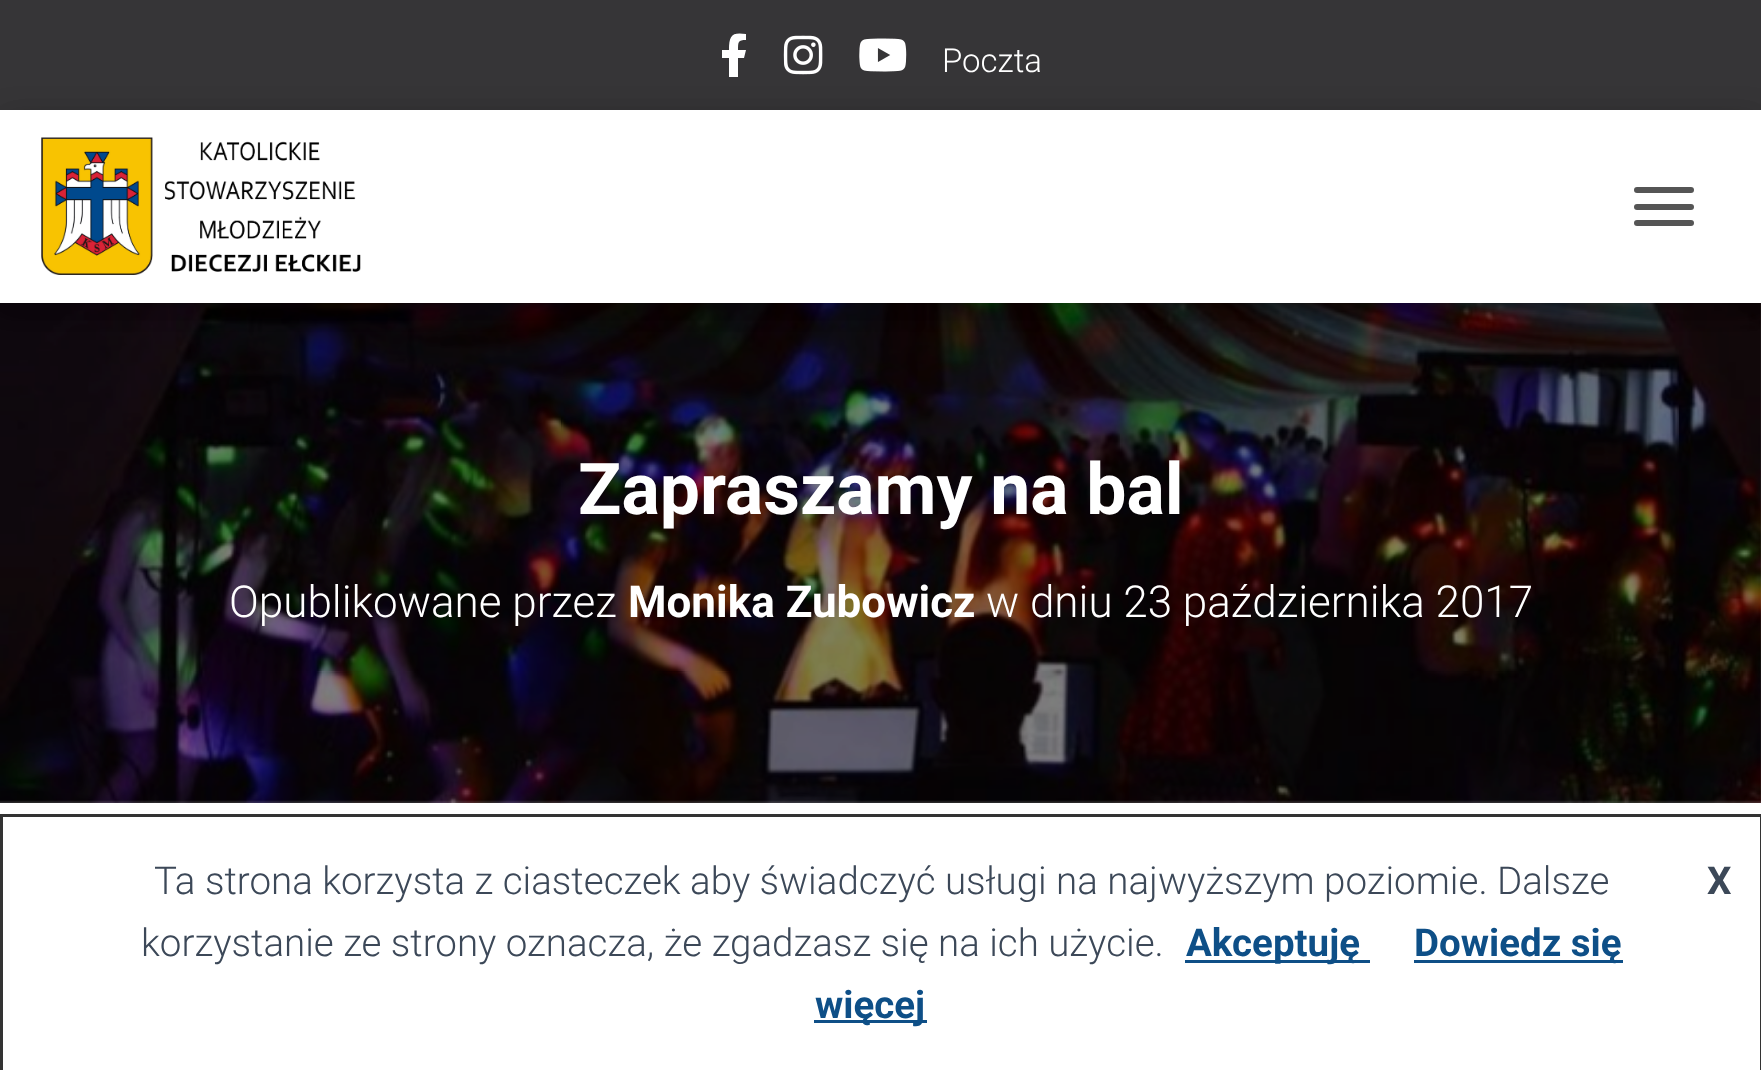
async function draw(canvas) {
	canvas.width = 1761;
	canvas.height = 1070;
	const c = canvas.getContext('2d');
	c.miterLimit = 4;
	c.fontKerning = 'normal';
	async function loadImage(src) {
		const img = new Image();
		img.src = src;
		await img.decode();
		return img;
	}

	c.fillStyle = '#fff';
	c.fillRect(0, 0, 1761, 1070);
	c.fillStyle = '#363537';
	c.fillRect(0, 0, 1761, 110);
	c.fillStyle = '#fff';
	c.beginPath();
	c.moveTo(744, 58);
	c.lineTo(738, 58);
	c.lineTo(738, 77);
	c.lineTo(729, 77);
	c.lineTo(729, 58);
	c.lineTo(722, 58);
	c.lineTo(722, 50);
	c.lineTo(729, 50);
	c.bezierCurveTo(729, 35, 732, 32, 746, 34);
	c.lineTo(746, 40);
	c.bezierCurveTo(738, 40, 738, 42, 738, 50);
	c.lineTo(746, 50);
	c.closePath();
	c.fill();
	c.drawImage(await loadImage('img1.png'), 783, 35, 40, 40);
	c.drawImage(await loadImage('img2.png'), 859, 38, 48, 34);
	c.font = '300 33px Roboto';
	c.fillText('Poczta', 942, 72);
	c.drawImage(await loadImage('img4.png'), 0, 303, 1761, 500);
	c.fillStyle = '#0000001a';
	c.filter = 'blur(7px)';
	c.beginPath();
	c.rect(6, 127, 1751, 181);
	c.fill();
	c.filter = 'none';
	c.fillStyle = '#0000001f';
	c.filter = 'blur(14px)';
	c.beginPath();
	c.rect(0, 113, 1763, 192);
	c.fill();
	c.filter = 'none';
	c.fillStyle = '#0000006b';
	c.filter = 'blur(14px)';
	c.beginPath();
	c.rect(17, 129, 1729, 160);
	c.fill();
	c.filter = 'none';
	c.fillStyle = '#fff';
	c.fillRect(0, 110, 1761, 193);
	c.drawImage(await loadImage('img3.png'), 41, 137, 320, 138);
	c.fillStyle = '#555';
	c.beginPath();
	c.roundRect(1634, 187, 60, 6, 3);
	c.fill();
	c.beginPath();
	c.roundRect(1634, 204, 60, 6, 3);
	c.fill();
	c.beginPath();
	c.roundRect(1634, 220, 60, 6, 3);
	c.fill();
	c.font = 'bold 71.5px Roboto';
	c.fillStyle = '#fff';
	c.fillText('Zapraszamy na bal', 578, 514);
	c.font = '300 44px Roboto';
	c.fillText('Opublikowane przez', 229, 617);
	c.font = 'bold 44px Roboto';
	c.fillText('Monika Zubowicz', 628, 617);
	c.font = '300 44px Roboto';
	c.fillText('w dniu 23 października 2017', 986, 617);
	c.strokeStyle = '#333';
	c.lineWidth = 3;
	c.strokeRect(1.5, 815.5, 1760, 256);
	c.font = '300 38.5px Roboto';
	c.fillStyle = '#3c4858';
	c.fillText('Ta strona korzysta z ciasteczek aby świadczyć usługi na najwyższym poziomie. Dalsze', 154, 894);
	c.font = 'bold 38.5px Roboto';
	c.fillText('X', 1707, 894);
	c.font = '300 38.5px Roboto';
	c.fillText('korzystanie ze strony oznacza, że zgadzasz się na ich użycie.', 141, 956);
	c.fillStyle = '#0e4f87';
	c.fillRect(1185, 960, 185, 3);
	c.font = 'bold 38.5px Roboto';
	c.fillText('Akceptuję', 1186, 956);
	c.fillRect(1414, 960, 209, 3);
	c.fillText('Dowiedz się', 1414, 956);
	c.fillRect(814, 1020, 113, 3);
	c.fillText('więcej', 815, 1018);
}

draw(document.querySelector('canvas'));
